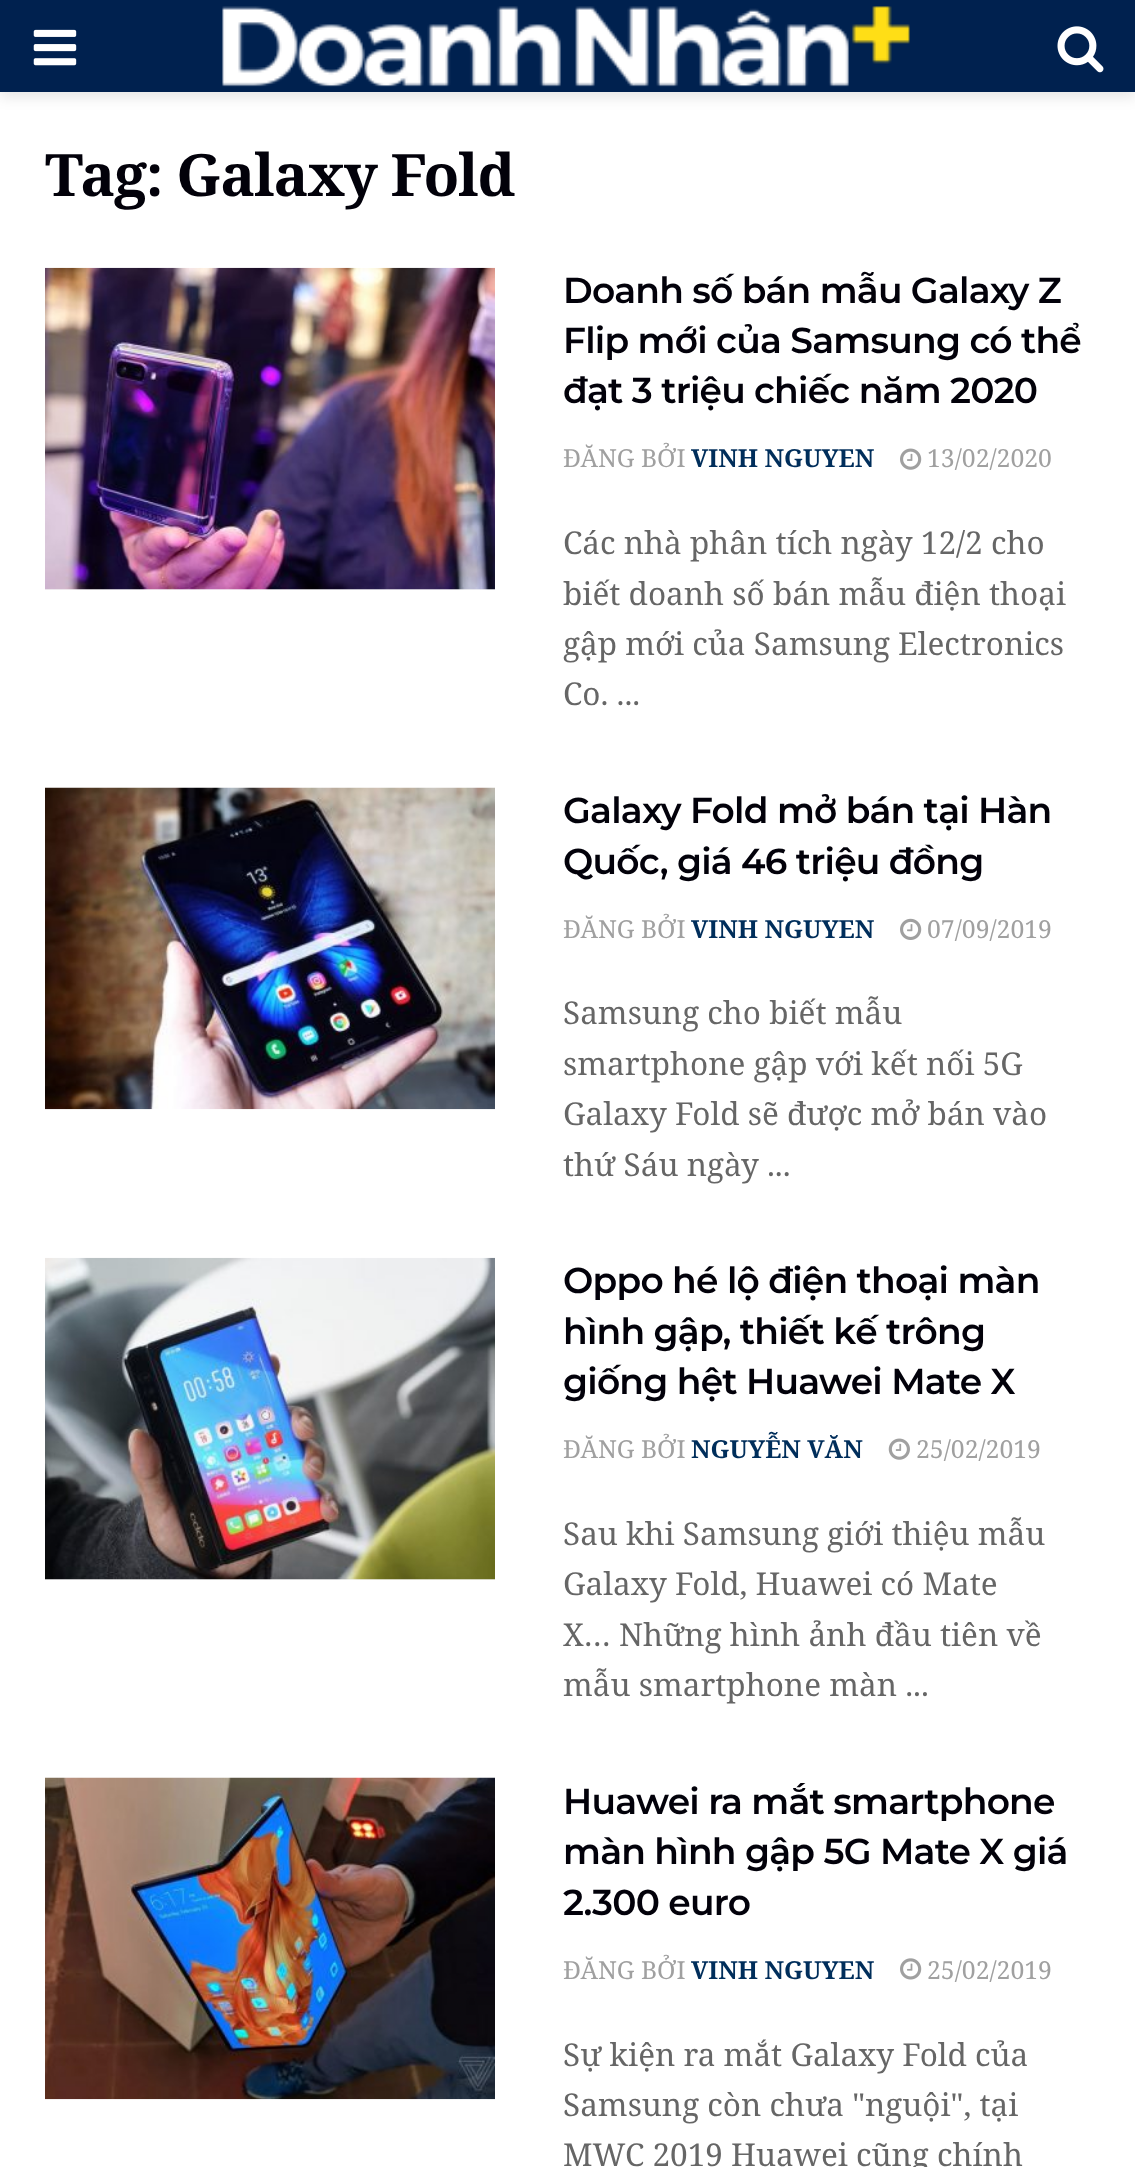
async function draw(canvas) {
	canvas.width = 1135;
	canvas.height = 2167;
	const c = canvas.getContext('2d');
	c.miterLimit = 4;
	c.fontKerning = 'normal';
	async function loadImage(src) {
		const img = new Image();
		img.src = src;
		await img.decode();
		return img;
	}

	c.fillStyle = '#fff';
	c.fillRect(0, 0, 1135, 2167);
	c.fillStyle = '#0000001a';
	c.filter = 'blur(7px)';
	c.beginPath();
	c.rect(0, 5, 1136, 92);
	c.fill();
	c.filter = 'none';
	c.fillStyle = '#00214f';
	c.fillRect(0, 0, 1135, 92);
	c.drawImage(await loadImage('img1.png'), 33, 29, 44, 37);
	c.drawImage(await loadImage('img2.png'), 222, 6, 688, 81);
	c.drawImage(await loadImage('img3.png'), 1057, 26, 47, 47);
	c.letterSpacing = '-1.2px';
	c.font = 'bold 58.5px Noto Serif';
	c.fillStyle = '#02010a';
	c.fillText('Tag: Galaxy Fold', 45, 196);
	c.fillStyle = '#f7f7f7';
	c.fillRect(45, 589, 450, 1);
	c.drawImage(await loadImage('img4.png'), 45, 267, 450, 323);
	c.letterSpacing = '-0.75px';
	c.font = '600 36px Montserrat';
	c.fillStyle = '#02010a';
	for (const [text, x, y] of [
		['Doanh số bán mẫu Galaxy Z', 563, 303],
		['Flip mới của Samsung có thể', 563, 353],
		['đạt 3 triệu chiếc năm 2020', 563, 403],
	]) {
		c.fillText(text, x, y);
	}
	c.letterSpacing = '0px';
	c.font = '24.75px Noto Serif';
	c.fillStyle = '#a0a0a0';
	c.fillText('ĐĂNG BỞI', 563, 467);
	c.font = 'bold 24.75px Noto Serif';
	c.fillStyle = '#002e5b';
	c.fillText('VINH NGUYEN', 691, 467);
	c.drawImage(await loadImage('img5.png'), 900, 448, 22, 22);
	c.font = '24.75px Noto Serif';
	c.fillStyle = '#a0a0a0';
	c.fillText('13/02/2020', 927, 467);
	c.font = '31.5px Noto Serif';
	c.fillStyle = '#666';
	for (const [text, x, y] of [
		['Các nhà phân tích ngày 12/2 cho', 563, 554],
		['biết doanh số bán mẫu điện thoại', 563, 605],
		['gập mới của Samsung Electronics', 563, 655],
		['Co. ...', 563, 705],
	]) {
		c.fillText(text, x, y);
	}
	c.drawImage(await loadImage('img6.png'), 45, 787, 450, 323);
	c.letterSpacing = '-0.75px';
	c.font = '600 36px Montserrat';
	c.fillStyle = '#02010a';
	c.fillText('Galaxy Fold mở bán tại Hàn', 563, 823);
	c.fillText('Quốc, giá 46 triệu đồng', 563, 874);
	c.letterSpacing = '0px';
	c.font = '24.75px Noto Serif';
	c.fillStyle = '#a0a0a0';
	c.fillText('ĐĂNG BỞI', 563, 938);
	c.font = 'bold 24.75px Noto Serif';
	c.fillStyle = '#002e5b';
	c.fillText('VINH NGUYEN', 691, 938);
	c.drawImage(await loadImage('img7.png'), 900, 918, 22, 22);
	c.font = '24.75px Noto Serif';
	c.fillStyle = '#a0a0a0';
	c.fillText('07/09/2019', 927, 938);
	c.font = '31.5px Noto Serif';
	c.fillStyle = '#666';
	for (const [text, x, y] of [
		['Samsung cho biết mẫu', 563, 1024],
		['smartphone gập với kết nối 5G', 563, 1075],
		['Galaxy Fold sẽ được mở bán vào', 563, 1125],
		['thứ Sáu ngày ...', 563, 1176],
	]) {
		c.fillText(text, x, y);
	}
	c.fillStyle = '#f7f7f7';
	c.fillRect(45, 1579, 450, 1);
	c.drawImage(await loadImage('img8.png'), 45, 1257, 450, 323);
	c.letterSpacing = '-0.75px';
	c.font = '600 36px Montserrat';
	c.fillStyle = '#02010a';
	for (const [text, x, y] of [
		['Oppo hé lộ điện thoại màn', 563, 1293],
		['hình gập, thiết kế trông', 563, 1344],
		['giống hệt Huawei Mate X', 563, 1394],
	]) {
		c.fillText(text, x, y);
	}
	c.letterSpacing = '0px';
	c.font = '24.75px Noto Serif';
	c.fillStyle = '#a0a0a0';
	c.fillText('ĐĂNG BỞI', 563, 1458);
	c.font = 'bold 24.75px Noto Serif';
	c.fillStyle = '#002e5b';
	c.fillText('NGUYỄN VĂN', 691, 1458);
	c.drawImage(await loadImage('img9.png'), 888, 1438, 22, 22);
	c.font = '24.75px Noto Serif';
	c.fillStyle = '#a0a0a0';
	c.fillText('25/02/2019', 916, 1458);
	c.font = '31.5px Noto Serif';
	c.fillStyle = '#666';
	for (const [text, x, y] of [
		['Sau khi Samsung giới thiệu mẫu', 563, 1545],
		['Galaxy Fold, Huawei có Mate', 563, 1595],
		['X… Những hình ảnh đầu tiên về', 563, 1646],
		['mẫu smartphone màn ...', 563, 1696],
	]) {
		c.fillText(text, x, y);
	}
	c.drawImage(await loadImage('img10.png'), 45, 1777, 450, 323);
	c.letterSpacing = '-0.75px';
	c.font = '600 36px Montserrat';
	c.fillStyle = '#02010a';
	for (const [text, x, y] of [
		['Huawei ra mắt smartphone', 563, 1814],
		['màn hình gập 5G Mate X giá', 563, 1864],
		['2.300 euro', 563, 1915],
	]) {
		c.fillText(text, x, y);
	}
	c.letterSpacing = '0px';
	c.font = '24.75px Noto Serif';
	c.fillStyle = '#a0a0a0';
	c.fillText('ĐĂNG BỞI', 563, 1979);
	c.font = 'bold 24.75px Noto Serif';
	c.fillStyle = '#002e5b';
	c.fillText('VINH NGUYEN', 691, 1979);
	c.drawImage(await loadImage('img11.png'), 900, 1958, 22, 22);
	c.font = '24.75px Noto Serif';
	c.fillStyle = '#a0a0a0';
	c.fillText('25/02/2019', 927, 1979);
	c.font = '31.5px Noto Serif';
	c.fillStyle = '#666';
	for (const [text, x, y] of [
		['Sự kiện ra mắt Galaxy Fold của', 563, 2066],
		['Samsung còn chưa "nguội", tại', 563, 2116],
		['MWC 2019 Huawei cũng chính', 563, 2166],
	]) {
		c.fillText(text, x, y);
	}
}

draw(document.querySelector('canvas'));
